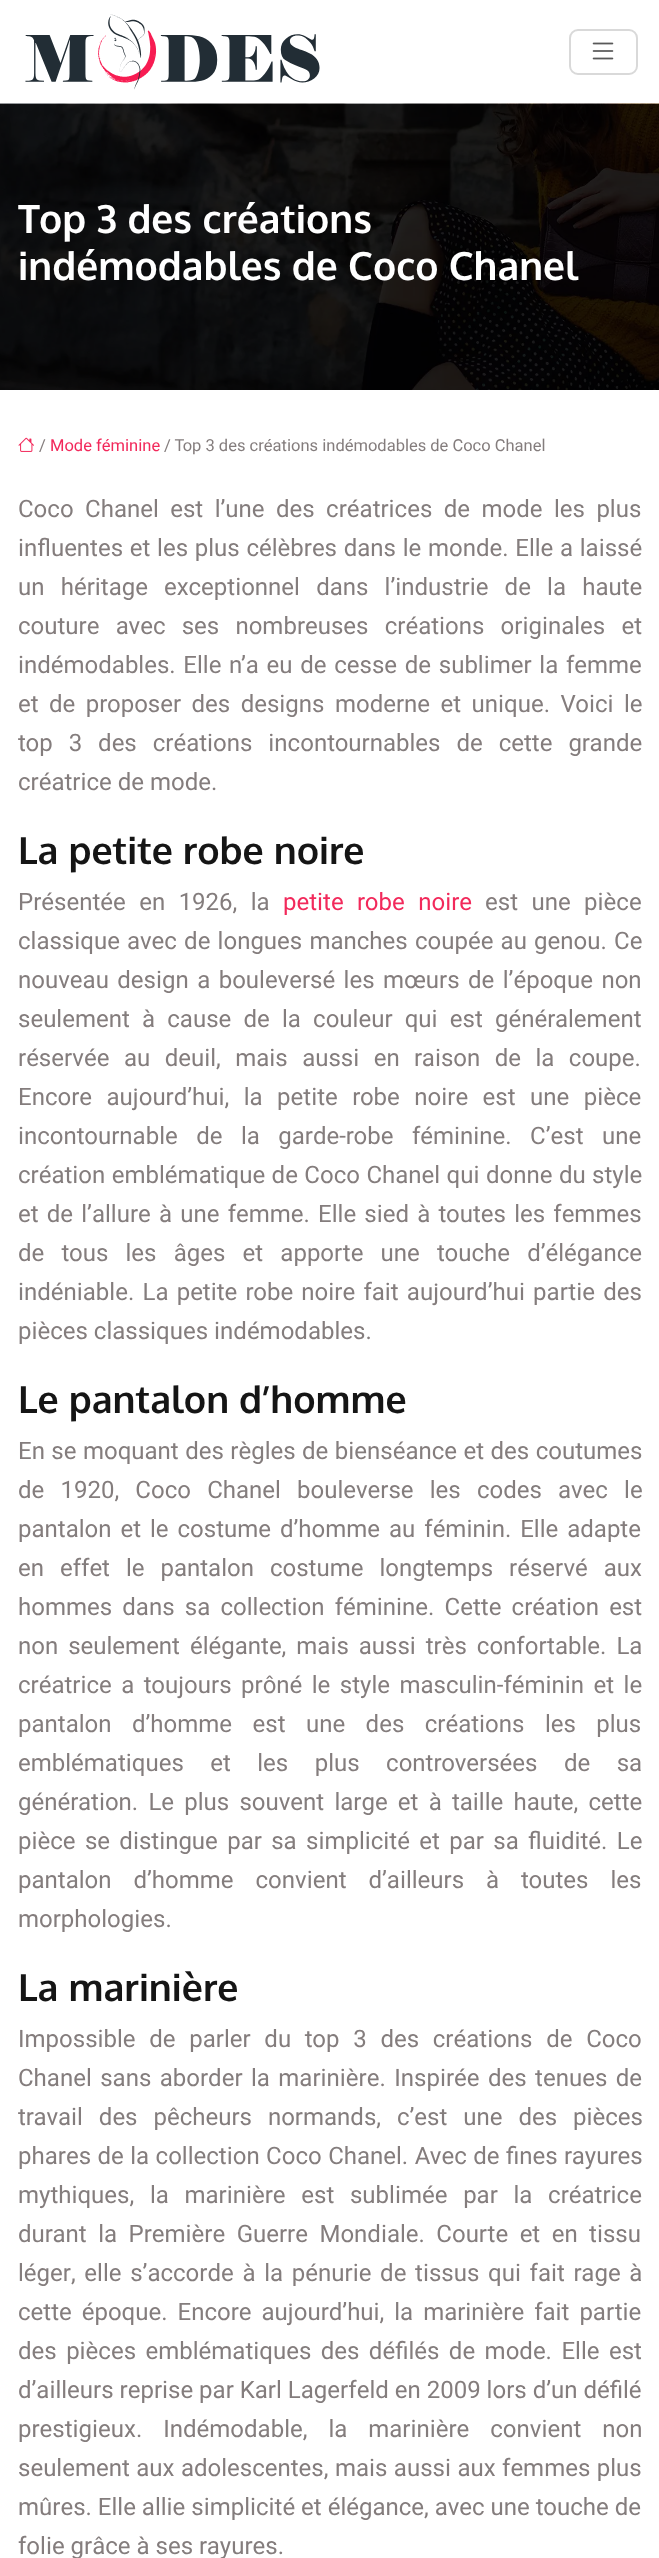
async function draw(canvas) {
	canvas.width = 659;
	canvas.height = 2558;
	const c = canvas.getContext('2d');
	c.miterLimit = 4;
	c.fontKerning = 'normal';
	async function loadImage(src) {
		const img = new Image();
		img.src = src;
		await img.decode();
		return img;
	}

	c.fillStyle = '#fff';
	c.fillRect(0, 0, 659, 2558);
	c.drawImage(await loadImage('img1.png'), 25, 14, 295, 76);
	c.beginPath();
	c.roundRect(570, 30, 67, 44, 8);
	c.strokeStyle = '#d9d9d9';
	c.lineWidth = 2;
	c.stroke();
	c.drawImage(await loadImage('img2.png'), 592, 42, 22, 18);
	c.drawImage(await loadImage('img3.png'), 0, 103, 659, 287);
	c.font = 'bold 39px Oxygen';
	c.fillText('Top 3 des créations', 18, 233);
	c.fillText('indémodables de Coco Chanel', 18, 280);
	c.drawImage(await loadImage('img4.png'), 18, 437, 16, 15);
	c.font = '16.5px Heebo';
	c.fillStyle = '#847d7d';
	c.fillText('/', 39, 451);
	c.fillStyle = '#f2295b';
	c.fillText('Mode féminine', 50, 451);
	c.fillStyle = '#847d7d';
	c.fillText('/ Top 3 des créations indémodables de Coco Chanel', 164, 451);
	c.wordSpacing = '5.5px';
	c.font = '24px Heebo';
	c.fillText('Coco Chanel est l’une des créatrices de mode les plus', 18, 517);
	c.wordSpacing = '0.75px';
	c.fillText('influentes et les plus célèbres dans le monde. Elle a laissé', 18, 556);
	c.wordSpacing = '10.25px';
	c.fillText('un héritage exceptionnel dans l’industrie de la haute', 18, 595);
	c.fillText('couture avec ses nombreuses créations originales et', 18, 634);
	c.wordSpacing = '1.75px';
	c.fillText('indémodables. Elle n’a eu de cesse de sublimer la femme', 18, 673);
	c.wordSpacing = '4.5px';
	c.fillText('et de proposer des designs moderne et unique. Voici le', 18, 712);
	c.wordSpacing = '10px';
	c.fillText('top 3 des créations incontournables de cette grande', 18, 751);
	c.wordSpacing = '0px';
	c.fillText('créatrice de mode.', 18, 790);
	c.font = 'bold 37.5px Oxygen';
	c.fillStyle = '#151515';
	c.fillText('La petite robe noire', 18, 864);
	c.wordSpacing = '7.5px';
	c.font = '24px Heebo';
	c.fillStyle = '#847d7d';
	c.fillText('Présentée en 1926, la', 18, 910);
	c.fillStyle = '#f2295b';
	c.fillText('petite robe noire', 283, 910);
	c.fillStyle = '#847d7d';
	c.fillText('est une pièce', 485, 910);
	c.wordSpacing = '1.25px';
	c.fillText('classique avec de longues manches coupée au genou. Ce', 18, 949);
	c.wordSpacing = '2.5px';
	c.fillText('nouveau design a bouleversé les mœurs de l’époque non', 18, 988);
	c.wordSpacing = '6.25px';
	c.fillText('seulement à cause de la couleur qui est généralement', 18, 1027);
	c.wordSpacing = '8.5px';
	c.fillText('réservée au deuil, mais aussi en raison de la coupe.', 18, 1066);
	c.fillText('Encore aujourd’hui, la petite robe noire est une pièce', 18, 1105);
	c.wordSpacing = '12.5px';
	c.fillText('incontournable de la garde-robe féminine. C’est une', 18, 1144);
	c.wordSpacing = '0.5px';
	c.fillText('création emblématique de Coco Chanel qui donne du style', 18, 1183);
	c.wordSpacing = '2.25px';
	c.fillText('et de l’allure à une femme. Elle sied à toutes les femmes', 18, 1222);
	c.wordSpacing = '11.25px';
	c.fillText('de tous les âges et apporte une touche d’élégance', 18, 1261);
	c.wordSpacing = '2.25px';
	c.fillText('indéniable. La petite robe noire fait aujourd’hui partie des', 18, 1300);
	c.wordSpacing = '0px';
	c.fillText('pièces classiques indémodables.', 18, 1339);
	c.font = 'bold 37.5px Oxygen';
	c.fillStyle = '#151515';
	c.fillText('Le pantalon d’homme', 18, 1413);
	c.wordSpacing = '0.5px';
	c.font = '24px Heebo';
	c.fillStyle = '#847d7d';
	c.fillText('En se moquant des règles de bienséance et des coutumes', 18, 1459);
	c.wordSpacing = '10.25px';
	c.fillText('de 1920, Coco Chanel bouleverse les codes avec le', 18, 1498);
	c.wordSpacing = '3px';
	c.fillText('pantalon et le costume d’homme au féminin. Elle adapte', 18, 1537);
	c.wordSpacing = '10px';
	c.fillText('en effet le pantalon costume longtemps réservé aux', 18, 1576);
	c.wordSpacing = '4.25px';
	c.fillText('hommes dans sa collection féminine. Cette création est', 18, 1615);
	c.wordSpacing = '4px';
	c.fillText('non seulement élégante, mais aussi très confortable. La', 18, 1654);
	c.wordSpacing = '3.5px';
	c.fillText('créatrice a toujours prôné le style masculin-féminin et le', 18, 1693);
	c.wordSpacing = '14.5px';
	c.fillText('pantalon d’homme est une des créations les plus', 18, 1732);
	c.wordSpacing = '20.5px';
	c.fillText('emblématiques et les plus controversées de sa', 18, 1771);
	c.wordSpacing = '4.25px';
	c.fillText('génération. Le plus souvent large et à taille haute, cette', 18, 1810);
	c.wordSpacing = '3.4px';
	c.fillText('pièce se distingue par sa simplicité et par sa fluidité. Le', 18, 1849);
	c.wordSpacing = '16px';
	c.fillText('pantalon d’homme convient d’ailleurs à toutes les', 18, 1888);
	c.wordSpacing = '0px';
	c.fillText('morphologies.', 18, 1927);
	c.font = 'bold 37.5px Oxygen';
	c.fillStyle = '#151515';
	c.fillText('La marinière', 18, 2001);
	c.wordSpacing = '7.75px';
	c.font = '24px Heebo';
	c.fillStyle = '#847d7d';
	c.fillText('Impossible de parler du top 3 des créations de Coco', 18, 2047);
	c.wordSpacing = '2.5px';
	c.fillText('Chanel sans aborder la marinière. Inspirée des tenues de', 18, 2086);
	c.wordSpacing = '10px';
	c.fillText('travail des pêcheurs normands, c’est une des pièces', 18, 2125);
	c.wordSpacing = '0.5px';
	c.fillText('phares de la collection Coco Chanel. Avec de fines rayures', 18, 2164);
	c.wordSpacing = '9.75px';
	c.fillText('mythiques, la marinière est sublimée par la créatrice', 18, 2203);
	c.wordSpacing = '5.5px';
	c.fillText('durant la Première Guerre Mondiale. Courte et en tissu', 18, 2242);
	c.wordSpacing = '2.75px';
	c.fillText('léger, elle s’accorde à la pénurie de tissus qui fait rage à', 18, 2281);
	c.wordSpacing = '4px';
	c.fillText('cette époque. Encore aujourd’hui, la marinière fait partie', 18, 2320);
	c.wordSpacing = '3.5px';
	c.fillText('des pièces emblématiques des défilés de mode. Elle est', 18, 2359);
	c.wordSpacing = '0px';
	c.fillText('d’ailleurs reprise par Karl Lagerfeld en 2009 lors d’un défilé', 18, 2398);
	c.wordSpacing = '15px';
	c.fillText('prestigieux. Indémodable, la marinière convient non', 18, 2437);
	c.wordSpacing = '0.5px';
	c.fillText('seulement aux adolescentes, mais aussi aux femmes plus', 18, 2476);
	c.wordSpacing = '0px';
	c.fillText('mûres. Elle allie simplicité et élégance, avec une touche de', 18, 2515);
	c.fillText('folie grâce à ses rayures.', 18, 2554);
}

draw(document.querySelector('canvas'));
